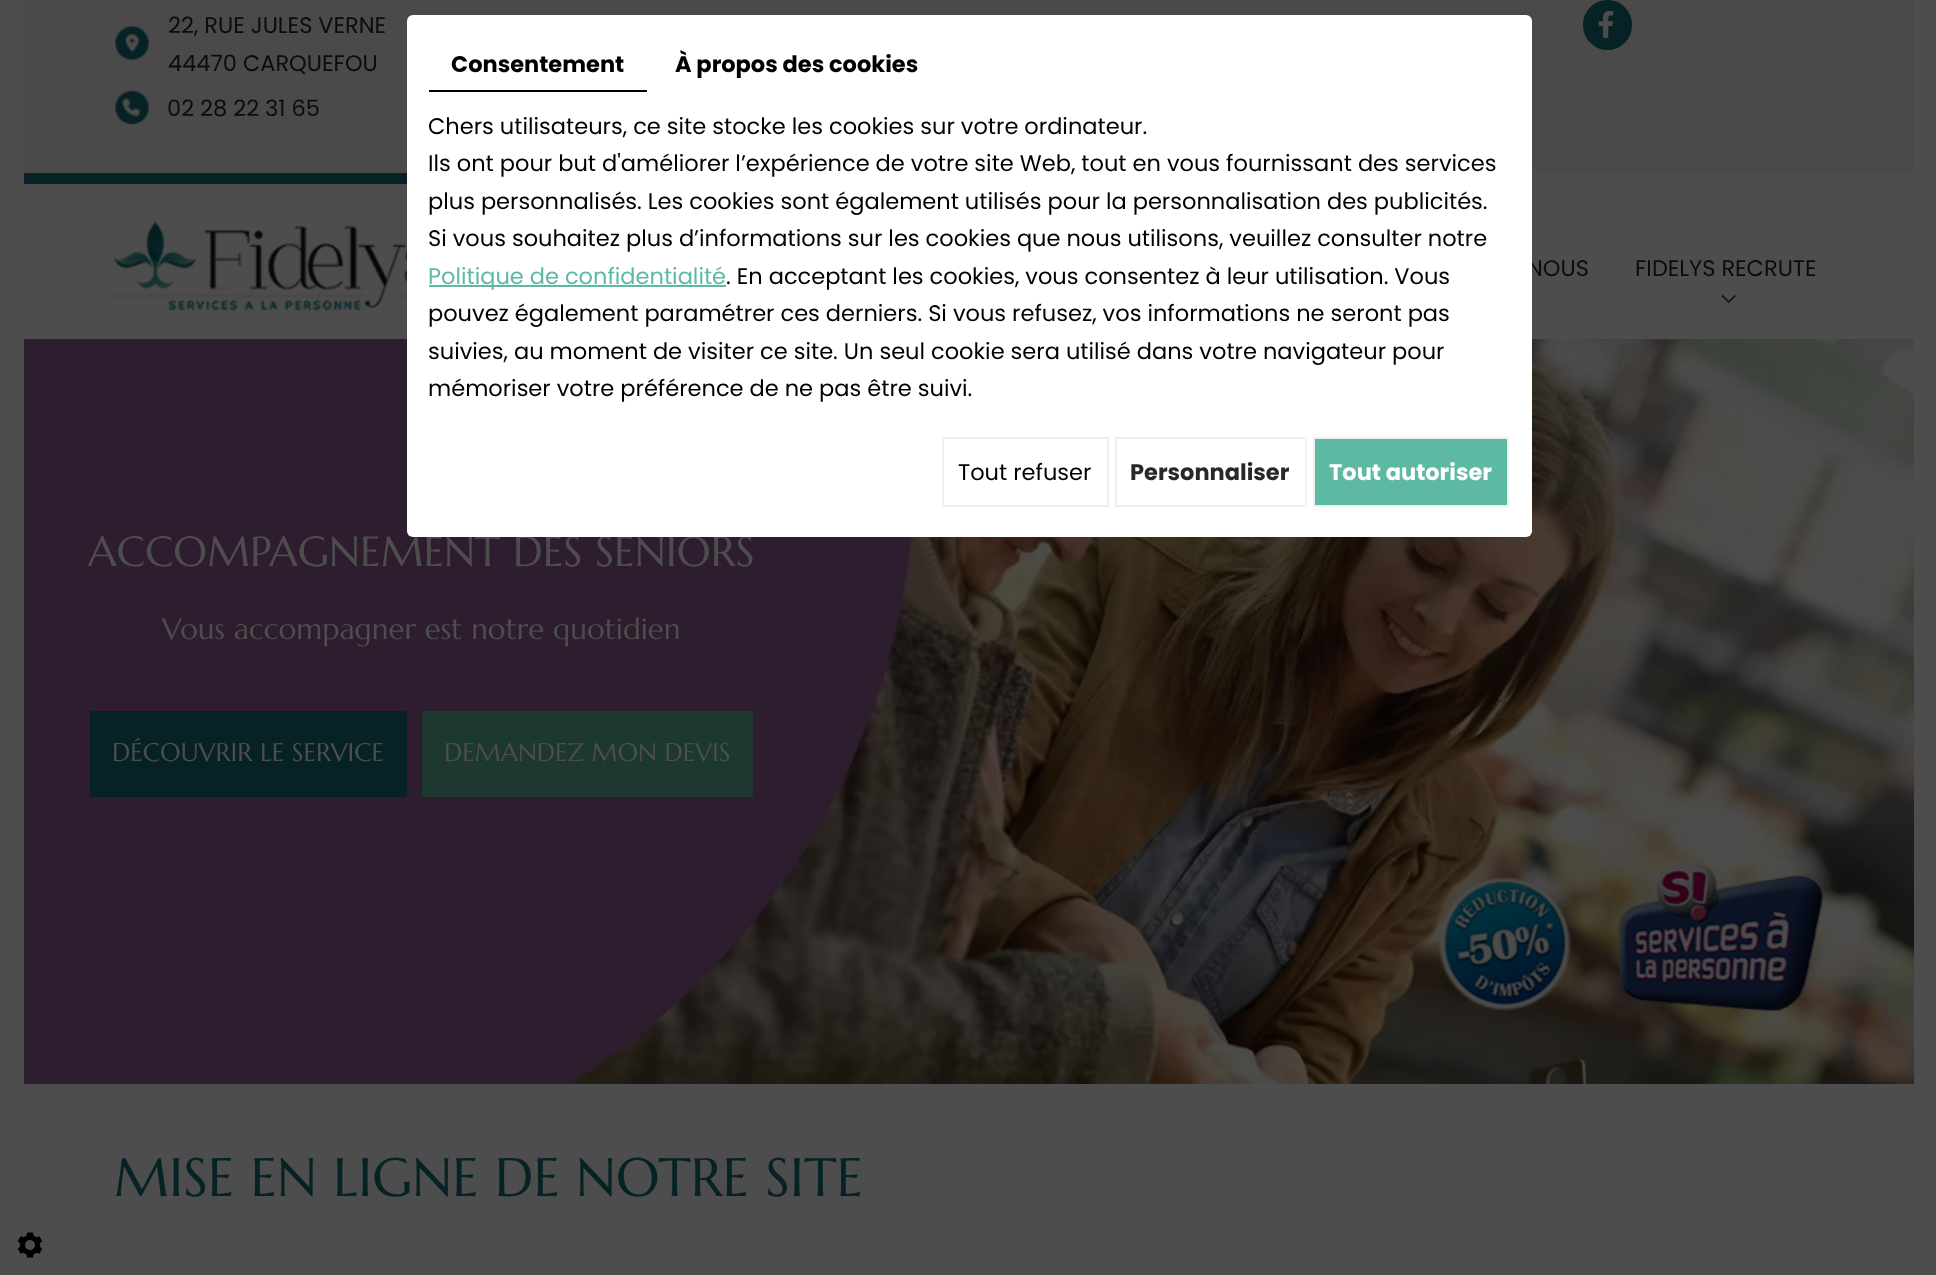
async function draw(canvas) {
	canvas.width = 1936;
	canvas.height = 1275;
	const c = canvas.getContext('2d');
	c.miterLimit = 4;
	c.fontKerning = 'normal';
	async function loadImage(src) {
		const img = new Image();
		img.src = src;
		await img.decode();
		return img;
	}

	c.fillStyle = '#4d4d4d';
	c.fillRect(0, 0, 1936, 1275);
	c.fillStyle = '#4a4a4a';
	c.fillRect(24, 0, 1890, 173);
	c.drawImage(await loadImage('img1.png'), 115, 26, 34, 34);
	c.font = '22.5px Poppins';
	c.fillStyle = '#0c0c0c';
	c.fillText('22, RUE JULES VERNE', 168, 33);
	c.fillText('44470 CARQUEFOU', 168, 71);
	c.drawImage(await loadImage('img2.png'), 115, 90, 34, 35);
	c.fillText('02 28 22 31 65', 167, 116);
	c.fillStyle = '#062224';
	c.beginPath();
	c.roundRect(1583, 0, 49, 50, 24.5);
	c.fill();
	c.drawImage(await loadImage('img3.png'), 1598, 10, 16, 28);
	c.beginPath();
	c.moveTo(24, 173);
	c.lineTo(24, 184);
	c.lineTo(459, 184);
	c.lineTo(468, 173);
	c.closePath();
	c.fill();
	c.drawImage(await loadImage('img4.png'), 114, 221, 293, 90);
	c.fillStyle = '#0c0c0c';
	c.fillText('NOUS', 1527, 276);
	c.fillText('FIDELYS RECRUTE', 1635, 276);
	c.drawImage(await loadImage('img5.png'), 1721, 295, 15, 9);
	c.drawImage(await loadImage('img6.png'), 24, 339, 1890, 745);
	c.font = '42px Marcellus';
	c.fillStyle = '#4d4d4d';
	c.fillText('ACCOMPAGNEMENT DES SÉNIORS', 88, 566);
	c.font = '29.4px Marcellus';
	c.fillText('Vous accompagner est notre quotidien', 162, 639);
	c.fillStyle = '#062224';
	c.fillRect(90, 711, 317, 86);
	c.font = '25.5px Marcellus';
	c.fillStyle = '#4d4d4d';
	c.fillText('DÉCOUVRIR LE SERVICE', 112, 761);
	c.fillStyle = '#1c3831';
	c.fillRect(422, 711, 331, 86);
	c.fillStyle = '#4d4d4d';
	c.fillText('DEMANDEZ MON DEVIS', 444, 761);
	c.drawImage(await loadImage('img7.png'), 1438, 877, 134, 134);
	c.drawImage(await loadImage('img8.png'), 1617, 860, 207, 151);
	c.font = '54px Marcellus';
	c.fillStyle = '#062224';
	c.fillText('MISE EN LIGNE DE NOTRE SITE', 114, 1196);
	c.fillStyle = '#fff';
	c.beginPath();
	c.roundRect(407, 15, 1125, 522, 6);
	c.fill();
	c.fillStyle = '#000';
	c.fillRect(429, 90, 218, 2);
	c.font = 'bold 22.5px Poppins';
	c.fillText('Consentement', 451, 72);
	c.fillText('À propos des cookies', 675, 72);
	c.font = '22.5px Poppins';
	for (const [text, x, y] of [
		['Chers utilisateurs, ce site stocke les cookies sur votre ordinateur.', 428, 134],
		['Ils ont pour but d\'améliorer l’expérience de votre site Web, tout en vous fournissant des services', 428, 171],
		['plus personnalisés. Les cookies sont également utilisés pour la personnalisation des publicités.', 428, 209],
		['Si vous souhaitez plus d’informations sur les cookies que nous utilisons, veuillez consulter notre', 428, 246],
	]) {
		c.fillText(text, x, y);
	}
	c.fillStyle = '#5db9a2';
	c.fillRect(429, 285, 297, 2);
	c.fillText('Politique de confidentialité', 428, 284);
	c.fillStyle = '#000';
	for (const [text, x, y] of [
		['. En acceptant les cookies, vous consentez à leur utilisation. Vous', 726, 284],
		['pouvez également paramétrer ces derniers. Si vous refusez, vos informations ne seront pas', 428, 321],
		['suivies, au moment de visiter ce site. Un seul cookie sera utilisé dans votre navigateur pour', 428, 359],
		['mémoriser votre préférence de ne pas être suivi.', 428, 396],
	]) {
		c.fillText(text, x, y);
	}
	c.strokeStyle = '#f0f0f0';
	c.lineWidth = 2;
	c.strokeRect(943, 438, 165, 68);
	c.fillText('Tout refuser', 958, 480);
	c.strokeRect(1116, 438, 190, 68);
	c.font = 'bold 22.5px Poppins';
	c.fillStyle = '#282828';
	c.fillText('Personnaliser', 1130, 480);
	c.fillStyle = '#5db9a2';
	c.beginPath();
	c.rect(1314, 438, 194, 68);
	c.fill();
	c.stroke();
	c.fillStyle = '#fff';
	c.fillText('Tout autoriser', 1329, 480);
	c.drawImage(await loadImage('img9.png'), 17, 1232, 26, 26);
}

draw(document.querySelector('canvas'));
